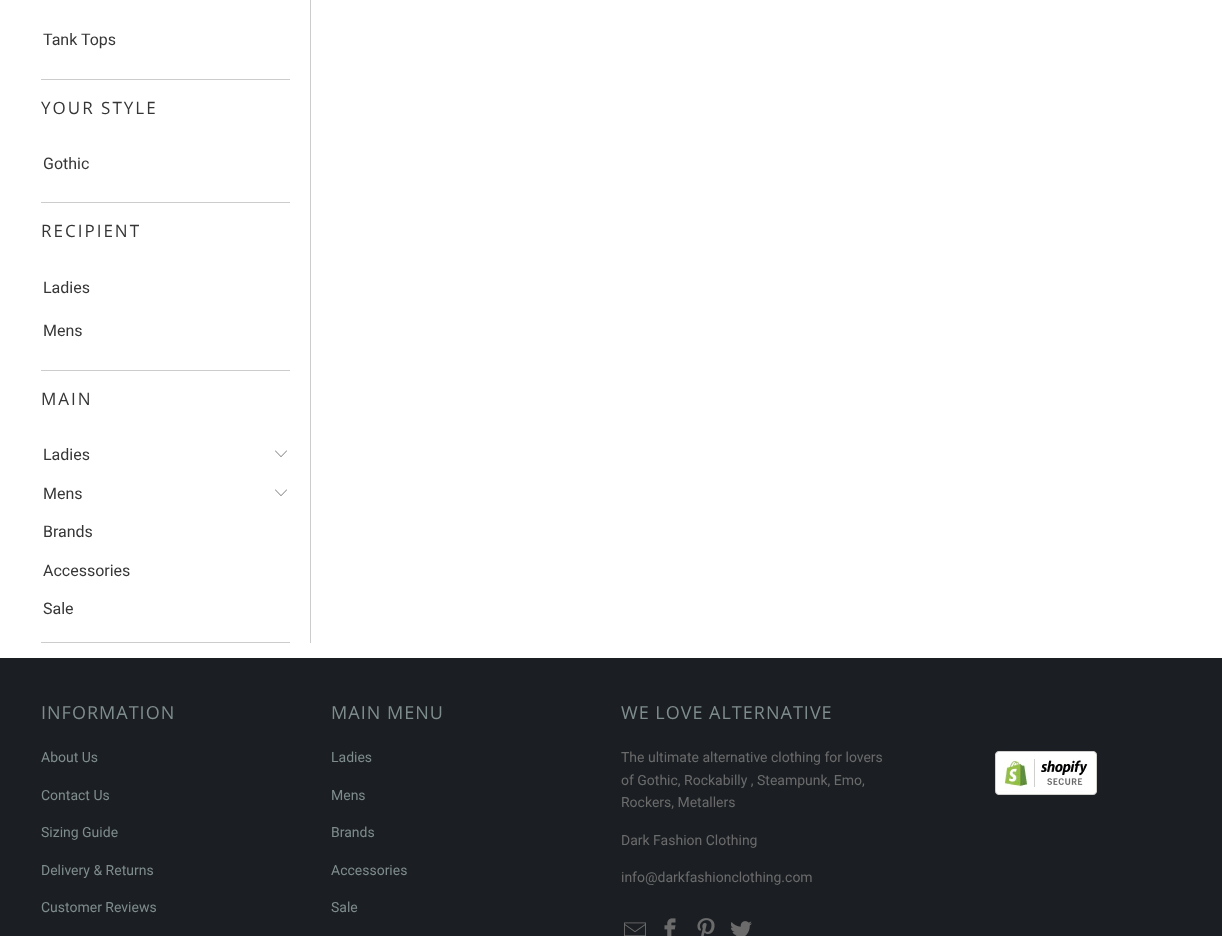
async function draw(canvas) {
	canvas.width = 1222;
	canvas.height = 936;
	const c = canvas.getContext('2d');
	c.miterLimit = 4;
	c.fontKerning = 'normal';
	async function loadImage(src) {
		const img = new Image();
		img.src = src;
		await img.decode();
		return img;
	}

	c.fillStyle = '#fff';
	c.fillRect(0, 0, 1222, 936);
	c.fillStyle = '#ccc';
	c.fillRect(310, 0, 1, 643);
	c.font = '16px Roboto';
	c.fillStyle = '#363636';
	c.fillText('Tank Tops', 43, 45);
	c.fillStyle = '#ccc';
	c.fillRect(41, 79, 249, 1);
	c.letterSpacing = '2px';
	c.font = '17px Open Sans';
	c.fillStyle = '#363636';
	c.fillText('YOUR STYLE', 41, 114);
	c.letterSpacing = '0px';
	c.font = '16px Roboto';
	c.fillText('Gothic', 43, 169);
	c.fillStyle = '#ccc';
	c.fillRect(41, 202, 249, 1);
	c.letterSpacing = '2px';
	c.font = '17px Open Sans';
	c.fillStyle = '#363636';
	c.fillText('RECIPIENT', 41, 237);
	c.letterSpacing = '0px';
	c.font = '16px Roboto';
	c.fillText('Ladies', 43, 293);
	c.fillText('Mens', 43, 336);
	c.fillStyle = '#ccc';
	c.fillRect(41, 370, 249, 1);
	c.letterSpacing = '2px';
	c.font = '17px Open Sans';
	c.fillStyle = '#363636';
	c.fillText('MAIN', 41, 405);
	c.letterSpacing = '0px';
	c.font = '16px Roboto';
	c.fillText('Ladies', 43, 460);
	c.drawImage(await loadImage('img1.png'), 275, 450, 12, 7);
	c.fillText('Mens', 43, 499);
	c.drawImage(await loadImage('img1.png'), 275, 489, 12, 7);
	for (const [text, x, y] of [
		['Brands', 43, 537],
		['Accessories', 43, 576],
		['Sale', 43, 614],
	]) {
		c.fillText(text, x, y);
	}
	c.fillStyle = '#ccc';
	c.fillRect(41, 642, 249, 1);
	c.fillStyle = '#1b1f23';
	c.fillRect(0, 658, 1222, 278);
	c.letterSpacing = '1px';
	c.font = '18px Open Sans';
	c.fillStyle = '#7f8c8d';
	c.fillText('INFORMATION', 41, 719);
	c.letterSpacing = '0px';
	c.font = '14px Roboto';
	for (const [text, x, y] of [
		['About Us', 41, 762],
		['Contact Us', 41, 800],
		['Sizing Guide', 41, 837],
		['Delivery & Returns', 41, 875],
		['Customer Reviews', 41, 912],
	]) {
		c.fillText(text, x, y);
	}
	c.letterSpacing = '1px';
	c.font = '18px Open Sans';
	c.fillText('MAIN MENU', 331, 719);
	c.letterSpacing = '0px';
	c.font = '14px Roboto';
	for (const [text, x, y] of [
		['Ladies', 331, 762],
		['Mens', 331, 800],
		['Brands', 331, 837],
		['Accessories', 331, 875],
		['Sale', 331, 912],
	]) {
		c.fillText(text, x, y);
	}
	c.letterSpacing = '1px';
	c.font = '18px Open Sans';
	c.fillText('WE LOVE ALTERNATIVE', 621, 719);
	c.letterSpacing = '0px';
	c.font = '14px Roboto';
	c.fillStyle = '#6b6b6b';
	for (const [text, x, y] of [
		['The ultimate alternative clothing for lovers', 621, 762],
		['of Gothic, Rockabilly , Steampunk, Emo,', 621, 785],
		['Rockers, Metallers', 621, 807],
		['Dark Fashion Clothing', 621, 845],
		['info@darkfashionclothing.com', 621, 882],
	]) {
		c.fillText(text, x, y);
	}
	c.drawImage(await loadImage('img2.png'), 624, 922, 22, 14);
	c.drawImage(await loadImage('img3.png'), 664, 918, 12, 18);
	c.drawImage(await loadImage('img4.png'), 697, 918, 18, 18);
	c.drawImage(await loadImage('img5.png'), 731, 921, 21, 15);
	c.drawImage(await loadImage('img6.png'), 995, 751, 102, 44);
}

draw(document.querySelector('canvas'));
